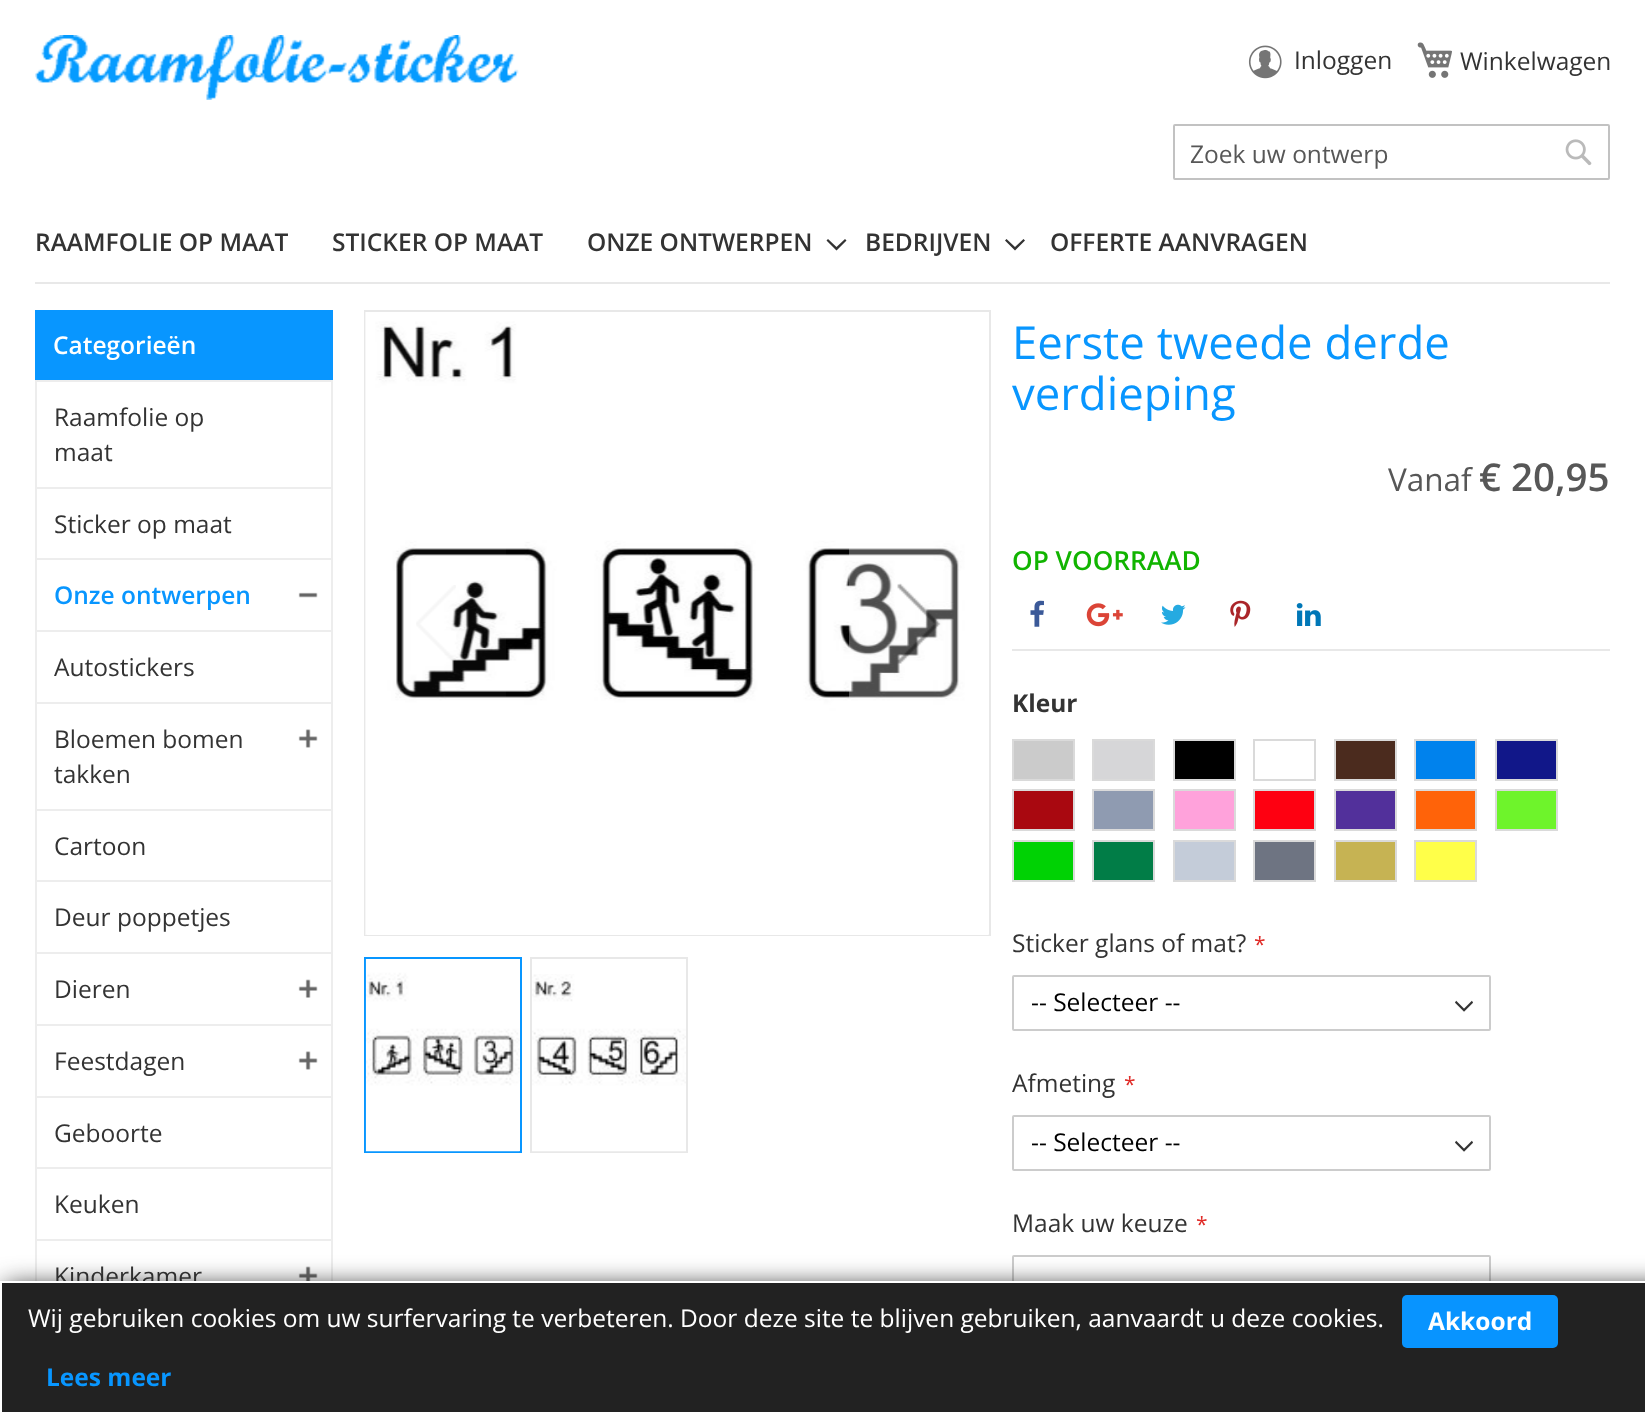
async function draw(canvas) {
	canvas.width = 1645;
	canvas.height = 1413;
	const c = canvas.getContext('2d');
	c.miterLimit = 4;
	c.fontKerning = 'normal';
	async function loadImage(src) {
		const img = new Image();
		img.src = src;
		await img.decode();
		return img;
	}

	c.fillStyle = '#fff';
	c.fillRect(0, 0, 1645, 1413);
	c.drawImage(await loadImage('img1.png'), 35, 35, 484, 65);
	c.drawImage(await loadImage('img2.png'), 1248, 45, 34, 34);
	c.font = '24.5px Open Sans';
	c.fillStyle = '#333';
	c.fillText('Inloggen', 1294, 69);
	c.drawImage(await loadImage('img3.png'), 1417, 42, 35, 36);
	c.fillText('Winkelwagen', 1460, 70);
	c.beginPath();
	c.roundRect(1174, 125, 435, 54, 1);
	c.strokeStyle = '#c2c2c2';
	c.lineWidth = 2;
	c.stroke();
	c.fillStyle = '#575757';
	c.fillText('Zoek uw ontwerp', 1190, 163);
	c.drawImage(await loadImage('img4.png'), 1565, 139, 27, 27);
	c.fillStyle = '#e8e8e8';
	c.fillRect(35, 282, 1575, 2);
	c.font = '600 24.5px Open Sans';
	c.fillStyle = '#333';
	for (const [text, x, y] of [
		['RAAMFOLIE OP MAAT', 35, 251],
		['STICKER OP MAAT', 332, 251],
		['ONZE ONTWERPEN', 587, 251],
	]) {
		c.fillText(text, x, y);
	}
	c.beginPath();
	c.moveTo(836.5, 247);
	c.lineTo(828, 239);
	c.lineTo(826.5, 240.5);
	c.lineTo(836.5, 250.5);
	c.lineTo(846.5, 240.5);
	c.lineTo(845, 239);
	c.closePath();
	c.fill();
	c.fillText('BEDRIJVEN', 865, 251);
	c.beginPath();
	c.moveTo(1015, 247);
	c.lineTo(1006.5, 239);
	c.lineTo(1005, 240.5);
	c.lineTo(1015, 250.5);
	c.lineTo(1025, 240.5);
	c.lineTo(1023.5, 239);
	c.closePath();
	c.fill();
	c.fillText('OFFERTE AANVRAGEN', 1050, 251);
	c.fillStyle = '#0896ff';
	c.fillRect(35, 310, 298, 70);
	c.fillStyle = '#fff';
	c.fillText('Categorieën', 53, 354);
	for (const [x, y, w, h, color] of [
		[331, 380, 2, 901, '#ededed'],
		[35, 380, 2, 901, '#ededed'],
		[37, 380, 294, 2, '#ededed'],
	]) {
		c.fillStyle = color;
		c.fillRect(x, y, w, h);
	}
	c.font = '24.5px Open Sans';
	c.fillStyle = '#333';
	c.fillText('Raamfolie op', 54, 426);
	c.fillText('maat', 54, 461);
	c.fillStyle = '#ededed';
	c.fillRect(37, 487, 294, 2);
	c.fillStyle = '#333';
	c.fillText('Sticker op maat', 54, 533);
	c.fillStyle = '#ededed';
	c.fillRect(37, 558, 294, 2);
	c.font = '600 24.5px Open Sans';
	c.fillStyle = '#0896ff';
	c.fillText('Onze ontwerpen', 54, 604);
	c.drawImage(await loadImage('img5.png'), 298, 592, 20, 6);
	c.fillStyle = '#ededed';
	c.fillRect(37, 630, 294, 2);
	c.font = '24.5px Open Sans';
	c.fillStyle = '#333';
	c.fillText('Autostickers', 54, 676);
	c.fillStyle = '#ededed';
	c.fillRect(37, 702, 294, 2);
	c.fillStyle = '#333';
	c.fillText('Bloemen bomen', 54, 748);
	c.fillText('takken', 54, 783);
	c.drawImage(await loadImage('img6.png'), 298, 729, 20, 19);
	c.fillStyle = '#ededed';
	c.fillRect(37, 809, 294, 2);
	c.fillStyle = '#333';
	c.fillText('Cartoon', 54, 855);
	c.fillStyle = '#ededed';
	c.fillRect(37, 880, 294, 2);
	c.fillStyle = '#333';
	c.fillText('Deur poppetjes', 54, 926);
	c.fillStyle = '#ededed';
	c.fillRect(37, 952, 294, 2);
	c.fillStyle = '#333';
	c.fillText('Dieren', 54, 998);
	c.drawImage(await loadImage('img7.png'), 298, 979, 20, 19);
	c.fillStyle = '#ededed';
	c.fillRect(37, 1024, 294, 2);
	c.fillStyle = '#333';
	c.fillText('Feestdagen', 54, 1070);
	c.drawImage(await loadImage('img6.png'), 298, 1051, 20, 19);
	c.fillStyle = '#ededed';
	c.fillRect(37, 1096, 294, 2);
	c.fillStyle = '#333';
	c.fillText('Geboorte', 54, 1142);
	c.fillStyle = '#ededed';
	c.fillRect(37, 1167, 294, 2);
	c.fillStyle = '#333';
	c.fillText('Keuken', 54, 1213);
	c.fillStyle = '#ededed';
	c.fillRect(37, 1239, 294, 2);
	c.fillStyle = '#333';
	c.fillText('Kinderkamer', 54, 1285);
	c.drawImage(await loadImage('img8.png'), 298, 1266, 20, 15);
	c.strokeStyle = '#e8e8e8';
	c.strokeRect(365, 311, 625, 624);
	c.drawImage(await loadImage('img9.png'), 365, 312, 624, 623);
	c.fillStyle = '#ffffff08';
	c.fillRect(384, 327, 122, 370);
	c.drawImage(await loadImage('img10.png'), 416, 585, 40, 76);
	c.fillStyle = '#ffffff4d';
	c.fillRect(849, 548, 140, 387);
	c.drawImage(await loadImage('img11.png'), 897, 583, 44, 81);
	c.strokeStyle = '#0896ff';
	c.strokeRect(365, 958, 156, 194);
	c.drawImage(await loadImage('img12.png'), 365, 959, 155, 193);
	c.strokeStyle = '#e8e8e8';
	c.strokeRect(531, 958, 156, 194);
	c.drawImage(await loadImage('img13.png'), 532, 974, 154, 178);
	c.font = '45.5px Open Sans';
	c.fillStyle = '#0896ff';
	c.fillText('Eerste tweede derde', 1012, 359);
	c.fillText('verdieping', 1012, 410);
	c.fillStyle = '#e8e8e8';
	c.fillRect(1012, 649, 598, 2);
	c.font = '31.5px Open Sans';
	c.fillStyle = '#575757';
	c.fillText('Vanaf', 1388, 491);
	c.font = '600 38.5px Open Sans';
	c.fillText('€ 20,95', 1479, 491);
	c.font = '600 26.25px Open Sans';
	c.fillStyle = '#11b400';
	c.fillText('OP VOORRAAD', 1012, 570);
	c.drawImage(await loadImage('img14.png'), 1030, 600, 14, 27);
	c.drawImage(await loadImage('img15.png'), 1086, 603, 37, 24);
	c.drawImage(await loadImage('img16.png'), 1161, 604, 25, 21);
	c.drawImage(await loadImage('img17.png'), 1230, 600, 21, 27);
	c.drawImage(await loadImage('img18.png'), 1296, 603, 25, 23);
	c.font = 'bold 24.5px Open Sans';
	c.fillStyle = '#333';
	c.fillText('Kleur', 1012, 712);
	c.fillStyle = '#cbcbcb';
	c.beginPath();
	c.rect(1013, 740, 61, 40);
	c.fill();
	c.strokeStyle = '#dadada';
	c.stroke();
	c.fillStyle = '#d6d6d8';
	c.beginPath();
	c.rect(1093, 740, 61, 40);
	c.fill();
	c.stroke();
	c.fillStyle = '#000';
	c.beginPath();
	c.rect(1174, 740, 61, 40);
	c.fill();
	c.stroke();
	c.strokeRect(1254, 740, 61, 40);
	c.fillStyle = '#4b2b1e';
	c.beginPath();
	c.rect(1335, 740, 61, 40);
	c.fill();
	c.stroke();
	c.fillStyle = '#0082ed';
	c.beginPath();
	c.rect(1415, 740, 61, 40);
	c.fill();
	c.stroke();
	c.fillStyle = '#111789';
	c.beginPath();
	c.rect(1496, 740, 61, 40);
	c.fill();
	c.stroke();
	c.fillStyle = '#a90810';
	c.beginPath();
	c.rect(1013, 790, 61, 40);
	c.fill();
	c.stroke();
	c.fillStyle = '#8f9bb1';
	c.beginPath();
	c.rect(1093, 790, 61, 40);
	c.fill();
	c.stroke();
	c.fillStyle = '#ffa2db';
	c.beginPath();
	c.rect(1174, 790, 61, 40);
	c.fill();
	c.stroke();
	c.fillStyle = '#fe0011';
	c.beginPath();
	c.rect(1254, 790, 61, 40);
	c.fill();
	c.stroke();
	c.fillStyle = '#52309b';
	c.beginPath();
	c.rect(1335, 790, 61, 40);
	c.fill();
	c.stroke();
	c.fillStyle = '#ff6309';
	c.beginPath();
	c.rect(1415, 790, 61, 40);
	c.fill();
	c.stroke();
	c.fillStyle = '#6ef42b';
	c.beginPath();
	c.rect(1496, 790, 61, 40);
	c.fill();
	c.stroke();
	c.fillStyle = '#00d204';
	c.beginPath();
	c.rect(1013, 841, 61, 40);
	c.fill();
	c.stroke();
	c.fillStyle = '#017d47';
	c.beginPath();
	c.rect(1093, 841, 61, 40);
	c.fill();
	c.stroke();
	c.fillStyle = '#c4ccd9';
	c.beginPath();
	c.rect(1174, 841, 61, 40);
	c.fill();
	c.stroke();
	c.fillStyle = '#6e7482';
	c.beginPath();
	c.rect(1254, 841, 61, 40);
	c.fill();
	c.stroke();
	c.fillStyle = '#c6b353';
	c.beginPath();
	c.rect(1335, 841, 61, 40);
	c.fill();
	c.stroke();
	c.fillStyle = '#ffff49';
	c.beginPath();
	c.rect(1415, 841, 61, 40);
	c.fill();
	c.stroke();
	c.font = '24.5px Open Sans';
	c.fillStyle = '#333';
	c.fillText('Sticker glans of mat?', 1012, 952);
	c.font = '21px Open Sans';
	c.fillStyle = '#e02b27';
	c.fillText('*', 1254, 952);
	c.drawImage(await loadImage('img19.png'), 1455, 1000, 18, 12);
	c.beginPath();
	c.roundRect(1013, 976, 477, 54, 1);
	c.strokeStyle = '#ccc';
	c.stroke();
	c.font = '24.5px Open Sans';
	c.fillStyle = '#000';
	c.fillText('-- Selecteer --', 1031, 1011);
	c.fillStyle = '#333';
	c.fillText('Afmeting', 1012, 1092);
	c.font = '21px Open Sans';
	c.fillStyle = '#e02b27';
	c.fillText('*', 1124, 1092);
	c.drawImage(await loadImage('img19.png'), 1455, 1140, 18, 12);
	c.beginPath();
	c.roundRect(1013, 1116, 477, 54, 1);
	c.stroke();
	c.font = '24.5px Open Sans';
	c.fillStyle = '#000';
	c.fillText('-- Selecteer --', 1031, 1151);
	c.fillStyle = '#333';
	c.fillText('Maak uw keuze', 1012, 1232);
	c.font = '21px Open Sans';
	c.fillStyle = '#e02b27';
	c.fillText('*', 1196, 1232);
	c.drawImage(await loadImage('img20.png'), 1456, 1280, 16, 1);
	c.beginPath();
	c.roundRect(1013, 1256, 477, 54, 1);
	c.stroke();
	c.fillStyle = '#222';
	c.filter = 'blur(13px)';
	c.beginPath();
	c.rect(5, 1286, 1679, 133);
	c.fill();
	c.filter = 'none';
	c.beginPath();
	c.rect(1, 1282, 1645, 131);
	c.fill();
	c.strokeStyle = '#fff';
	c.stroke();
	c.font = '24.5px Open Sans';
	c.fillStyle = '#fff';
	c.fillText('Wij gebruiken cookies om uw surfervaring te verbeteren. Door deze site te blijven gebruiken, aanvaardt u deze cookies.', 28, 1327);
	c.fillStyle = '#0894ff';
	c.beginPath();
	c.roundRect(1402, 1295, 156, 53, 5);
	c.fill();
	c.font = 'bold 24.5px Open Sans';
	c.fillStyle = '#fff';
	c.fillText('Akkoord', 1428, 1330);
	c.fillStyle = '#0896ff';
	c.fillText('Lees meer', 46, 1386);
}

draw(document.querySelector('canvas'));
